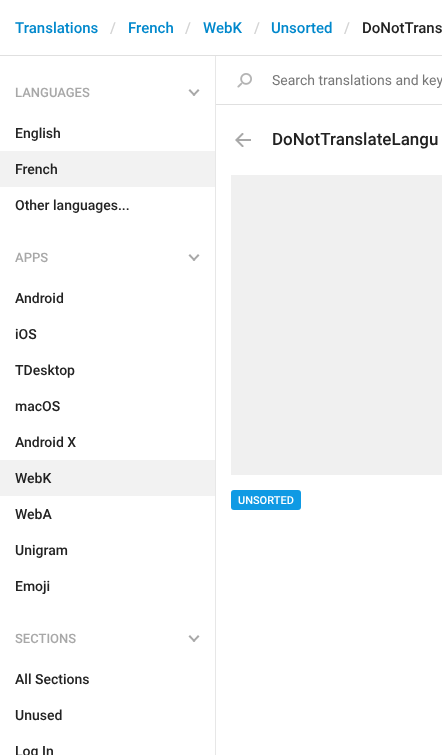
async function draw(canvas) {
	canvas.width = 442;
	canvas.height = 755;
	const c = canvas.getContext('2d');
	c.miterLimit = 4;
	c.fontKerning = 'normal';
	async function loadImage(src) {
		const img = new Image();
		img.src = src;
		await img.decode();
		return img;
	}

	c.fillStyle = '#fff';
	c.fillRect(0, 0, 442, 755);
	c.fillStyle = '#e0e0e0';
	c.fillRect(0, 55, 442, 1);
	c.font = '500 15px Roboto';
	c.fillStyle = '#08c';
	c.fillText('Translations', 15, 33);
	c.fillStyle = '#d4d4d4';
	c.fillText('/', 110, 33);
	c.fillStyle = '#08c';
	c.fillText('French', 128, 33);
	c.fillStyle = '#d4d4d4';
	c.fillText('/', 185, 33);
	c.fillStyle = '#08c';
	c.fillText('WebK', 203, 33);
	c.fillStyle = '#d4d4d4';
	c.fillText('/', 254, 33);
	c.fillStyle = '#08c';
	c.fillText('Unsorted', 271, 33);
	c.fillStyle = '#d4d4d4';
	c.fillText('/', 344, 33);
	c.fillStyle = '#222';
	c.fillText('DoNotTrans', 362, 33);
	c.fillStyle = '#e0e0e0';
	c.fillRect(216, 104, 226, 1);
	c.drawImage(await loadImage('img1.png'), 237, 73, 15, 15);
	c.font = '14px Roboto';
	c.fillStyle = '#777';
	c.fillText('Search translations and key', 272, 85);
	c.font = '500 13px Roboto';
	c.fillStyle = '#a8a8a8';
	c.fillText('LANGUAGES', 15, 97);
	c.beginPath();
	c.moveTo(194, 96);
	c.lineTo(188.5, 90.5);
	c.lineTo(190, 89);
	c.lineTo(195.5, 95);
	c.closePath();
	c.fill();
	c.beginPath();
	c.moveTo(194, 96);
	c.lineTo(192.5, 95);
	c.lineTo(198, 89);
	c.lineTo(199.5, 90.5);
	c.closePath();
	c.fill();
	c.font = '500 14px Roboto';
	c.fillStyle = '#222';
	c.fillText('English', 15, 138);
	c.fillStyle = '#f2f2f2';
	c.fillRect(0, 151, 215, 36);
	c.fillStyle = '#222';
	c.fillText('French', 15, 174);
	c.fillText('Other languages...', 15, 210);
	c.font = '500 13px Roboto';
	c.fillStyle = '#a8a8a8';
	c.fillText('APPS', 15, 262);
	c.beginPath();
	c.moveTo(194, 261);
	c.lineTo(188.5, 255.5);
	c.lineTo(190, 254);
	c.lineTo(195.5, 260);
	c.closePath();
	c.fill();
	c.beginPath();
	c.moveTo(194, 261);
	c.lineTo(192.5, 260);
	c.lineTo(198, 254);
	c.lineTo(199.5, 255.5);
	c.closePath();
	c.fill();
	c.font = '500 14px Roboto';
	c.fillStyle = '#222';
	for (const [text, x, y] of [
		['Android', 15, 303],
		['iOS', 15, 339],
		['TDesktop', 15, 375],
		['macOS', 15, 411],
		['Android X', 15, 447],
	]) {
		c.fillText(text, x, y);
	}
	c.fillStyle = '#f2f2f2';
	c.fillRect(0, 460, 215, 36);
	c.fillStyle = '#222';
	for (const [text, x, y] of [
		['WebK', 15, 483],
		['WebA', 15, 519],
		['Unigram', 15, 555],
		['Emoji', 15, 591],
	]) {
		c.fillText(text, x, y);
	}
	c.font = '500 13px Roboto';
	c.fillStyle = '#a8a8a8';
	c.fillText('SECTIONS', 15, 643);
	c.beginPath();
	c.moveTo(194, 642);
	c.lineTo(188.5, 636.5);
	c.lineTo(190, 635);
	c.lineTo(195.5, 641);
	c.closePath();
	c.fill();
	c.beginPath();
	c.moveTo(194, 642);
	c.lineTo(192.5, 641);
	c.lineTo(198, 635);
	c.lineTo(199.5, 636.5);
	c.closePath();
	c.fill();
	c.font = '500 14px Roboto';
	c.fillStyle = '#222';
	for (const [text, x, y] of [
		['All Sections', 15, 684],
		['Unused', 15, 720],
		['Log In', 15, 756],
	]) {
		c.fillText(text, x, y);
	}
	c.fillStyle = '#e7e7e7';
	c.fillRect(215, 56, 1, 699);
	c.drawImage(await loadImage('img2.png'), 235, 133, 16, 14);
	c.font = '500 17px Roboto';
	c.fillStyle = '#222';
	c.fillText('DoNotTranslateLangu', 272, 145);
	c.fillStyle = '#f0f0f0';
	c.fillRect(231, 175, 211, 300);
	c.fillStyle = '#0f9ae4';
	c.beginPath();
	c.roundRect(231, 490, 70, 20, 3);
	c.fill();
	c.font = '500 11px Roboto';
	c.fillStyle = '#fff';
	c.fillText('UNSORTED', 238, 504);
}

draw(document.querySelector('canvas'));
